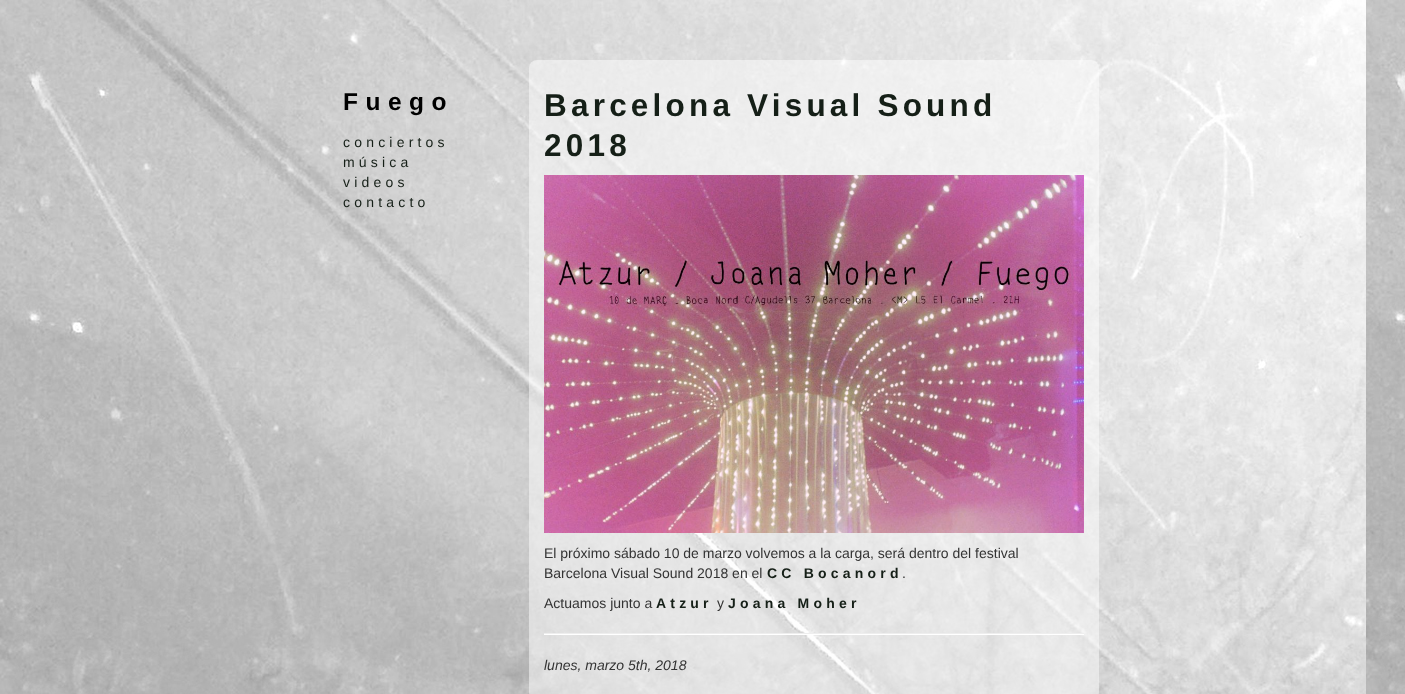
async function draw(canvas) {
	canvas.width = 1405;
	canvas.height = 694;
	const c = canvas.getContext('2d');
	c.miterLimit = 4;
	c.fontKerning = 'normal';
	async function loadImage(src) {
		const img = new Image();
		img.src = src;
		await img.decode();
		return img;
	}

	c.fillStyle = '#fff';
	c.fillRect(0, 0, 1405, 694);
	c.drawImage(await loadImage('img1.png'), 0, 0, 1405, 694);
	c.letterSpacing = '7.5px';
	c.font = 'bold 24.5px Liberation Sans';
	c.fillStyle = '#000';
	c.fillText('Fuego', 343, 110);
	c.letterSpacing = '4.2px';
	c.font = '14px Liberation Sans';
	c.fillStyle = '#151f17';
	for (const [text, x, y] of [
		['conciertos', 343, 147],
		['música', 343, 167],
		['videos', 343, 187],
		['contacto', 343, 207],
	]) {
		c.fillText(text, x, y);
	}
	c.fillStyle = '#fefefe80';
	c.beginPath();
	c.roundRect(529, 60, 570, 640, 8);
	c.fill();
	c.font = 'bold 31.5px Liberation Sans';
	c.fillStyle = '#151f17';
	c.fillText('Barcelona Visual Sound', 544, 116);
	c.fillText('2018', 544, 156);
	c.drawImage(await loadImage('img2.png'), 544, 175, 540, 358);
	c.letterSpacing = '0px';
	c.font = '14px Liberation Sans';
	c.fillStyle = '#333';
	c.fillText('El próximo sábado 10 de marzo volvemos a la carga, será dentro del festival', 544, 558);
	c.fillText('Barcelona Visual Sound 2018 en el', 544, 578);
	c.letterSpacing = '4.2px';
	c.font = 'bold 14px Liberation Sans';
	c.fillStyle = '#151f17';
	c.fillText('CC Bocanord', 767, 578);
	c.letterSpacing = '0px';
	c.font = '14px Liberation Sans';
	c.fillStyle = '#333';
	c.fillText('.', 902, 578);
	c.fillText('Actuamos junto a', 544, 608);
	c.letterSpacing = '4.2px';
	c.font = 'bold 14px Liberation Sans';
	c.fillStyle = '#151f17';
	c.fillText('Atzur', 656, 608);
	c.letterSpacing = '0px';
	c.font = '14px Liberation Sans';
	c.fillStyle = '#333';
	c.fillText('y', 717, 608);
	c.letterSpacing = '4.2px';
	c.font = 'bold 14px Liberation Sans';
	c.fillStyle = '#151f17';
	c.fillText('Joana Moher', 728, 608);
	c.fillStyle = '#eee';
	c.fillRect(544, 633, 540, 1);
	c.fillStyle = '#fff';
	c.fillRect(544, 634, 540, 1);
	c.letterSpacing = '0px';
	c.font = 'italic 14px Liberation Sans';
	c.fillStyle = '#333';
	c.fillText('lunes, marzo 5th, 2018', 544, 670);
}

draw(document.querySelector('canvas'));
